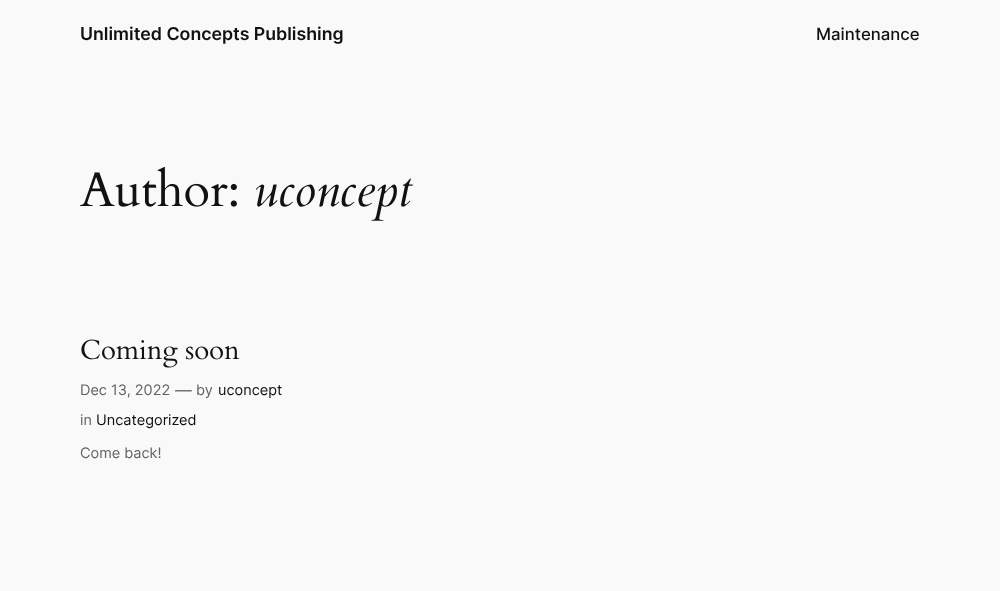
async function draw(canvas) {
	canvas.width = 1000;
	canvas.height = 591;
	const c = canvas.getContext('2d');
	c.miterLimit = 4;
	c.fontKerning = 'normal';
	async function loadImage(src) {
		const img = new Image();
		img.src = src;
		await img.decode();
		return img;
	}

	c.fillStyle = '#f9f9f9';
	c.fillRect(0, 0, 1000, 591);
	c.font = '600 17.75px Inter';
	c.fillStyle = '#111';
	c.fillText('Unlimited Concepts Publishing', 80, 40);
	c.font = '500 16.75px Inter';
	c.fillText('Maintenance', 816, 40);
	c.drawImage(await loadImage('img1.png'), 80, 166, 157, 41);
	c.font = 'italic 49px Cardo';
	c.fillText('uconcept', 253, 206);
	c.drawImage(await loadImage('img2.png'), 81, 339, 159, 29);
	c.font = '14.5px Inter';
	c.fillStyle = '#636363';
	c.fillText('Dec 13, 2022', 80, 395);
	c.font = '16.75px Inter';
	c.fillText('—', 175, 396);
	c.font = '14.5px Inter';
	c.fillText('by', 196, 395);
	c.fillStyle = '#111';
	c.fillText('uconcept', 218, 395);
	c.fillStyle = '#636363';
	c.fillText('in', 80, 425);
	c.fillStyle = '#111';
	c.fillText('Uncategorized', 96, 425);
	c.fillStyle = '#636363';
	c.fillText('Come back!', 80, 458);
}

draw(document.querySelector('canvas'));
